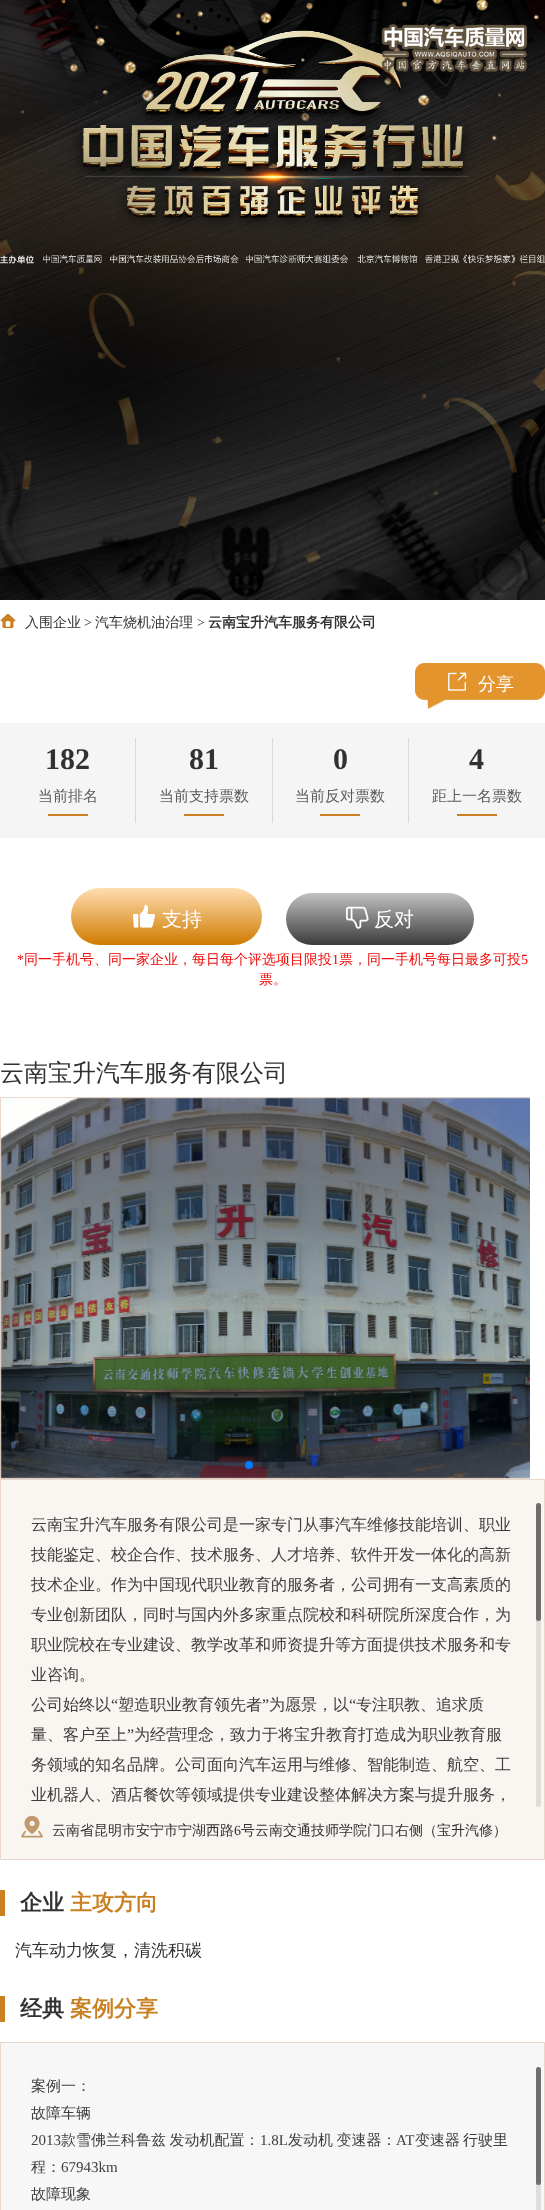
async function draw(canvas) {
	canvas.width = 545;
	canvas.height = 2210;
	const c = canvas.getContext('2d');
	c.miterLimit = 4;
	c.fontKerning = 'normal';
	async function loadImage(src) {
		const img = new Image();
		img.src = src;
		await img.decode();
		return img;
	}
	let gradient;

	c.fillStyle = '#fff';
	c.fillRect(0, 0, 545, 2210);
	c.drawImage(await loadImage('img1.png'), 0, 0, 545, 600);
	c.drawImage(await loadImage('img2.png'), 0, 24, 545, 240);
	c.drawImage(await loadImage('img3.png'), 381, 24, 149, 53);
	c.drawImage(await loadImage('img4.png'), 0, 613, 16, 16);
	c.font = '500 14px WenQuanYi Zen Hei';
	c.fillStyle = '#313131';
	c.fillText('入围企业', 25, 627);
	c.font = '14px Liberation Serif';
	c.fillText('>', 84, 627);
	c.font = '500 14px WenQuanYi Zen Hei';
	c.fillText('汽车烧机油治理', 95, 627);
	c.font = '14px Liberation Serif';
	c.fillText('>', 197, 627);
	c.font = 'bold 14px WenQuanYi Zen Hei';
	c.fillText('云南宝升汽车服务有限公司', 208, 627);
	c.drawImage(await loadImage('img5.png'), 415, 663, 130, 46);
	c.drawImage(await loadImage('img6.png'), 448, 672, 19, 19);
	c.font = '500 18px WenQuanYi Zen Hei';
	c.fillStyle = '#fff';
	c.fillText('分享', 478, 690);
	c.fillStyle = '#f5f5f5';
	c.fillRect(0, 723, 545, 115);
	c.fillStyle = '#d8d8d8';
	c.fillRect(135, 738, 1, 85);
	c.font = 'bold 30px Liberation Serif';
	c.fillStyle = '#313131';
	c.fillText('182', 45, 769);
	c.font = '500 15px WenQuanYi Zen Hei';
	c.fillStyle = '#5b5b5b';
	c.fillText('当前排名', 38, 801);
	c.fillStyle = '#c98021';
	c.fillRect(48, 814, 40, 2);
	c.fillStyle = '#d8d8d8';
	c.fillRect(272, 738, 1, 85);
	c.font = 'bold 30px Liberation Serif';
	c.fillStyle = '#313131';
	c.fillText('81', 189, 769);
	c.font = '500 15px WenQuanYi Zen Hei';
	c.fillStyle = '#5b5b5b';
	c.fillText('当前支持票数', 159, 801);
	c.fillStyle = '#c98021';
	c.fillRect(184, 814, 40, 2);
	c.fillStyle = '#d8d8d8';
	c.fillRect(408, 738, 1, 85);
	c.font = 'bold 30px Liberation Serif';
	c.fillStyle = '#313131';
	c.fillText('0', 333, 769);
	c.font = '500 15px WenQuanYi Zen Hei';
	c.fillStyle = '#5b5b5b';
	c.fillText('当前反对票数', 295, 801);
	c.fillStyle = '#c98021';
	c.fillRect(320, 814, 40, 2);
	c.font = 'bold 30px Liberation Serif';
	c.fillStyle = '#313131';
	c.fillText('4', 469, 769);
	c.font = '500 15px WenQuanYi Zen Hei';
	c.fillStyle = '#5b5b5b';
	c.fillText('距上一名票数', 432, 801);
	c.fillStyle = '#c98021';
	c.fillRect(457, 814, 40, 2);
	gradient = c.createLinearGradient(167, 888, 167, 945);
	gradient.addColorStop(0, '#ffddb0');
	gradient.addColorStop(1, '#cf7b00');
	c.fillStyle = gradient;
	c.beginPath();
	c.roundRect(71, 888, 191, 57, 28.5);
	c.fill();
	c.drawImage(await loadImage('img7.png'), 133, 904, 22, 24);
	c.font = '500 20px WenQuanYi Zen Hei';
	c.fillStyle = '#fff';
	c.fillText('支持', 162, 926);
	gradient = c.createLinearGradient(380, 893, 380, 945);
	gradient.addColorStop(0, '#c1c1c1');
	gradient.addColorStop(1, '#3b3b3b');
	c.fillStyle = gradient;
	c.beginPath();
	c.roundRect(286, 893, 188, 52, 26);
	c.fill();
	c.drawImage(await loadImage('img8.png'), 346, 906, 23, 23);
	c.fillStyle = '#fff';
	c.fillText('反对', 374, 926);
	c.font = '14px Liberation Serif';
	c.fillStyle = '#f10909';
	c.fillText('*', 17, 964);
	c.font = '500 14px WenQuanYi Zen Hei';
	c.fillText('同一手机号、同一家企业，每日每个评选项目限投', 24, 964);
	c.font = '14px Liberation Serif';
	c.fillText('1', 332, 964);
	c.font = '500 14px WenQuanYi Zen Hei';
	c.fillText('票，同一手机号每日最多可投', 339, 964);
	c.font = '14px Liberation Serif';
	c.fillText('5', 521, 964);
	c.font = '500 14px WenQuanYi Zen Hei';
	c.fillText('票。', 259, 984);
	c.font = '500 24px WenQuanYi Zen Hei';
	c.fillStyle = '#313131';
	c.fillText('云南宝升汽车服务有限公司', 0, 1081);
	c.fillStyle = '#f7f7f7';
	c.fillRect(1, 1098, 529, 380);
	c.save();
	c.beginPath();
	c.rect(0, 1097, 530, 382);
	c.clip();
	c.strokeStyle = '#e9d7c9';
	c.strokeRect(0.5, 1097.5, 534, 381);
	c.restore();
	c.drawImage(await loadImage('img9.png'), 0, 1097, 530, 382);
	c.fillStyle = '#007aff';
	c.beginPath();
	c.arc(249, 1465, 4, 0, 2 * Math.PI);
	c.fill();
	c.fillStyle = '#00000033';
	c.beginPath();
	c.arc(265, 1465, 4, 0, 2 * Math.PI);
	c.fill();
	c.beginPath();
	c.arc(281, 1465, 4, 0, 2 * Math.PI);
	c.fill();
	c.fillStyle = '#f9f6f1';
	c.beginPath();
	c.rect(0.5, 1479.5, 544, 380);
	c.fill();
	c.strokeStyle = '#e9d7c9';
	c.stroke();
	c.font = '500 16px WenQuanYi Zen Hei';
	c.fillStyle = '#3d3d3d';
	for (const [text, x, y] of [
		['云南宝升汽车服务有限公司是一家专门从事汽车维修技能培训、职业', 31, 1530],
		['技能鉴定、校企合作、技术服务、人才培养、软件开发一体化的高新', 31, 1560],
		['技术企业。作为中国现代职业教育的服务者，公司拥有一支高素质的', 31, 1590],
		['专业创新团队，同时与国内外多家重点院校和科研院所深度合作，为', 31, 1620],
		['职业院校在专业建设、教学改革和师资提升等方面提供技术服务和专', 31, 1650],
		['业咨询。', 31, 1680],
		['公司始终以', 31, 1710],
	]) {
		c.fillText(text, x, y);
	}
	c.font = '16px Liberation Serif';
	c.fillText('“', 111, 1710);
	c.font = '500 16px WenQuanYi Zen Hei';
	c.fillText('塑造职业教育领先者', 118, 1710);
	c.font = '16px Liberation Serif';
	c.fillText('”', 262, 1710);
	c.font = '500 16px WenQuanYi Zen Hei';
	c.fillText('为愿景，以', 269, 1710);
	c.font = '16px Liberation Serif';
	c.fillText('“', 349, 1710);
	c.font = '500 16px WenQuanYi Zen Hei';
	c.fillText('专注职教、追求质', 356, 1710);
	c.fillText('量、客户至上', 31, 1740);
	c.font = '16px Liberation Serif';
	c.fillText('”', 127, 1740);
	c.font = '500 16px WenQuanYi Zen Hei';
	for (const [text, x, y] of [
		['为经营理念，致力于将宝升教育打造成为职业教育服', 134, 1740],
		['务领域的知名品牌。公司面向汽车运用与维修、智能制造、航空、工', 31, 1770],
		['业机器人、酒店餐饮等领域提供专业建设整体解决方案与提升服务，', 31, 1800],
	]) {
		c.fillText(text, x, y);
	}
	c.fillStyle = '#e0ddd9';
	c.beginPath();
	c.roundRect(536, 1503, 5, 304, 2.5);
	c.fill();
	c.fillStyle = '#00000080';
	c.beginPath();
	c.roundRect(536, 1503, 5, 118, 2.5);
	c.fill();
	c.drawImage(await loadImage('img10.png'), 21, 1815, 22, 23);
	c.font = '500 14px WenQuanYi Zen Hei';
	c.fillStyle = '#313131';
	c.fillText('云南省昆明市安宁市宁湖西路', 52, 1835);
	c.font = '14px Liberation Serif';
	c.fillText('6', 234, 1835);
	c.font = '500 14px WenQuanYi Zen Hei';
	c.fillText('号云南交通技师学院门口右侧（宝升汽修）', 241, 1835);
	c.fillStyle = '#c98021';
	c.fillRect(0, 1890, 5, 26);
	c.font = 'bold 22px WenQuanYi Zen Hei';
	c.fillStyle = '#313131';
	c.fillText('企业', 20, 1910);
	c.fillStyle = '#c98021';
	c.fillText('主攻方向', 70, 1910);
	c.font = '500 17px WenQuanYi Zen Hei';
	c.fillStyle = '#313131';
	c.fillText('汽车动力恢复，清洗积碳', 15, 1956);
	c.fillStyle = '#c98021';
	c.fillRect(0, 1996, 5, 26);
	c.font = 'bold 22px WenQuanYi Zen Hei';
	c.fillStyle = '#313131';
	c.fillText('经典', 20, 2016);
	c.fillStyle = '#c98021';
	c.fillText('案例分享', 70, 2016);
	c.fillStyle = '#f7f7f7';
	c.beginPath();
	c.rect(0.5, 2042.5, 544, 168);
	c.fill();
	c.stroke();
	c.font = '500 15px WenQuanYi Zen Hei';
	c.fillStyle = '#3d3d3d';
	c.fillText('案例一：', 31, 2091);
	c.fillText('故障车辆', 31, 2118);
	c.font = '15px Liberation Serif';
	c.fillText('2013', 31, 2145);
	c.wordSpacing = '-1px';
	c.font = '500 15px WenQuanYi Zen Hei';
	c.fillText('款雪佛兰科鲁兹 发动机配置：', 61, 2145);
	c.wordSpacing = '0px';
	c.font = '15px Liberation Serif';
	c.fillText('1.8L', 260, 2145);
	c.wordSpacing = '-1px';
	c.font = '500 15px WenQuanYi Zen Hei';
	c.fillText('发动机 变速器：', 288, 2145);
	c.wordSpacing = '0px';
	c.font = '15px Liberation Serif';
	c.fillText('AT', 396, 2145);
	c.font = '500 15px WenQuanYi Zen Hei';
	for (const [text, x, y] of [
		['变速器', 415, 2145],
		['行驶里', 463, 2145],
		['程：', 31, 2172],
	]) {
		c.fillText(text, x, y);
	}
	c.font = '15px Liberation Serif';
	c.fillText('67943km', 61, 2172);
	c.font = '500 15px WenQuanYi Zen Hei';
	c.fillText('故障现象', 31, 2199);
	c.fillStyle = '#dedede';
	c.beginPath();
	c.roundRect(536, 2067, 5, 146, 2.5);
	c.fill();
	c.fillStyle = '#00000080';
	c.beginPath();
	c.roundRect(536, 2067, 5, 118, 2.5);
	c.fill();
}

draw(document.querySelector('canvas'));
